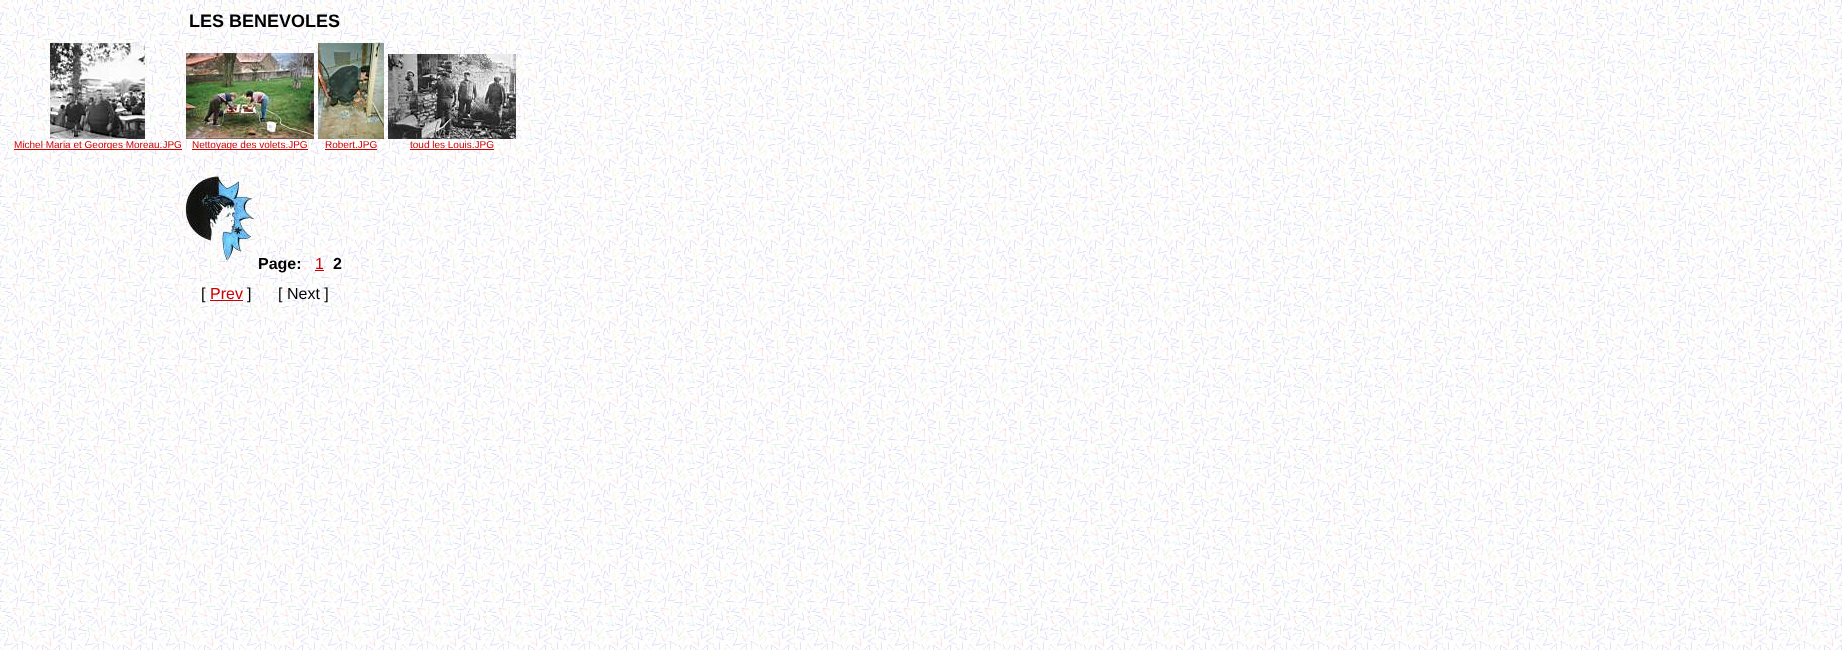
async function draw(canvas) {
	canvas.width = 1842;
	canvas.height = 650;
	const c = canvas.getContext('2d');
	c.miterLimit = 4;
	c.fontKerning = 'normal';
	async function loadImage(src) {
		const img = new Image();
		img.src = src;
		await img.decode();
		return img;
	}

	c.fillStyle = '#fff';
	c.fillRect(0, 0, 1842, 650);
	c.drawImage(await loadImage('img1.png'), 0, 0, 1842, 650);
	c.font = 'bold 18px Liberation Sans';
	c.fillStyle = '#000';
	c.fillText('LES BENEVOLES', 189, 27);
	c.drawImage(await loadImage('img2.png'), 50, 43, 95, 96);
	c.fillStyle = '#c00';
	c.fillRect(14, 149, 168, 1);
	c.font = '10px Liberation Sans';
	c.fillText('Michel Maria et Georges Moreau.JPG', 14, 148);
	c.drawImage(await loadImage('img3.png'), 186, 53, 128, 86);
	c.fillRect(192, 149, 116, 1);
	c.fillText('Nettoyage des volets.JPG', 192, 148);
	c.drawImage(await loadImage('img4.png'), 318, 43, 66, 96);
	c.fillText('Robert.JPG', 325, 148);
	c.fillRect(325, 149, 52, 1);
	c.drawImage(await loadImage('img5.png'), 388, 54, 128, 85);
	c.fillText('toud les Louis.JPG', 410, 148);
	c.fillRect(410, 149, 84, 1);
	c.drawImage(await loadImage('img6.png'), 183, 175, 75, 94);
	c.font = 'bold 16px Liberation Sans';
	c.fillStyle = '#000';
	c.fillText('Page:', 258, 269);
	c.font = '16px Liberation Sans';
	c.fillStyle = '#c00';
	c.fillText('1', 315, 269);
	c.fillRect(315, 270, 9, 1);
	c.font = 'bold 16px Liberation Sans';
	c.fillStyle = '#000';
	c.fillText('2', 333, 269);
	c.font = '16px Liberation Sans';
	c.fillText('[', 201, 299);
	c.fillStyle = '#c00';
	c.fillText('Prev', 210, 299);
	c.fillRect(210, 300, 33, 1);
	c.fillStyle = '#000';
	c.fillText(']      [ Next ]', 247, 299);
}

draw(document.querySelector('canvas'));
